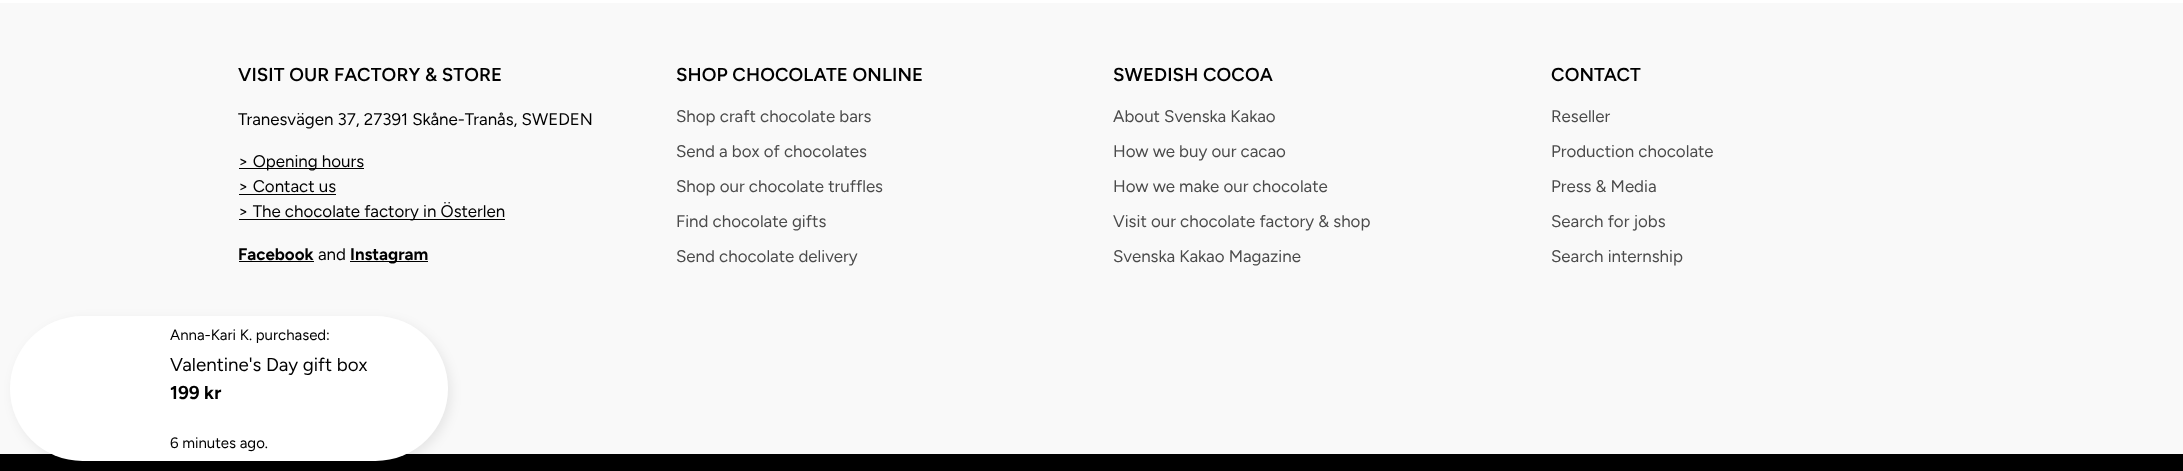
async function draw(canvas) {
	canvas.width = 2183;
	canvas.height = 471;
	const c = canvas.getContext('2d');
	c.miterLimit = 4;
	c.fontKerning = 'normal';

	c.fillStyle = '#fff';
	c.fillRect(0, 0, 2183, 471);
	c.fillStyle = '#f9f9f9';
	c.fillRect(0, 3, 2183, 451);
	c.letterSpacing = '0.1px';
	c.font = '600 18.75px Figtree';
	c.fillStyle = '#000';
	c.fillText('VISIT OUR FACTORY & STORE', 238, 81);
	c.letterSpacing = '0px';
	c.font = '16.9px Figtree';
	c.fillText('Tranesvägen 37, 27391 Skåne-Tranås, SWEDEN', 238, 125);
	c.fillRect(239, 168, 125, 1);
	c.fillText('> Opening hours', 238, 167);
	c.fillText('> Contact us', 238, 192);
	c.fillRect(239, 194, 97, 1);
	c.fillRect(239, 219, 266, 1);
	c.fillText('> The chocolate factory in Österlen', 238, 217);
	c.font = 'bold 16.9px Figtree';
	c.fillText('Facebook', 238, 260);
	c.fillRect(239, 261, 75, 1);
	c.font = '16.9px Figtree';
	c.fillText('and', 318, 260);
	c.fillRect(350, 261, 78, 1);
	c.font = 'bold 16.9px Figtree';
	c.fillText('Instagram', 350, 260);
	c.letterSpacing = '0.1px';
	c.font = '600 18.75px Figtree';
	c.fillText('SHOP CHOCOLATE ONLINE', 676, 81);
	c.letterSpacing = '0px';
	c.font = '16.9px Figtree';
	c.fillStyle = '#4b4b4b';
	for (const [text, x, y] of [
		['Shop craft chocolate bars', 676, 122],
		['Send a box of chocolates', 676, 157],
		['Shop our chocolate truffles', 676, 192],
		['Find chocolate gifts', 676, 227],
		['Send chocolate delivery', 676, 262],
	]) {
		c.fillText(text, x, y);
	}
	c.letterSpacing = '0.1px';
	c.font = '600 18.75px Figtree';
	c.fillStyle = '#000';
	c.fillText('SWEDISH COCOA', 1113, 81);
	c.letterSpacing = '0px';
	c.font = '16.9px Figtree';
	c.fillStyle = '#4b4b4b';
	for (const [text, x, y] of [
		['About Svenska Kakao', 1113, 122],
		['How we buy our cacao', 1113, 157],
		['How we make our chocolate', 1113, 192],
		['Visit our chocolate factory & shop', 1113, 227],
		['Svenska Kakao Magazine', 1113, 262],
	]) {
		c.fillText(text, x, y);
	}
	c.letterSpacing = '0.1px';
	c.font = '600 18.75px Figtree';
	c.fillStyle = '#000';
	c.fillText('CONTACT', 1551, 81);
	c.letterSpacing = '0px';
	c.font = '16.9px Figtree';
	c.fillStyle = '#4b4b4b';
	for (const [text, x, y] of [
		['Reseller', 1551, 122],
		['Production chocolate', 1551, 157],
		['Press & Media', 1551, 192],
		['Search for jobs', 1551, 227],
		['Search internship', 1551, 262],
	]) {
		c.fillText(text, x, y);
	}
	c.fillStyle = '#000';
	c.fillRect(0, 454, 2183, 17);
	c.fillStyle = '#00000014';
	c.filter = 'blur(6px)';
	c.beginPath();
	c.roundRect(14, 320, 437, 145, 72.5);
	c.fill();
	c.filter = 'none';
	c.fillStyle = '#fff';
	c.beginPath();
	c.roundRect(10, 316, 438, 145, 72.5);
	c.fill();
	c.font = '15px Figtree';
	c.fillStyle = '#000';
	c.fillText('Anna-Kari K. purchased:', 170, 340);
	c.font = '18.75px Figtree';
	c.fillText('Valentine\'s Day gift box', 170, 371);
	c.font = 'bold 18.75px Figtree';
	c.fillText('199 kr', 170, 399);
	c.font = '15px Figtree';
	c.fillText('6 minutes ago.', 170, 448);
}

draw(document.querySelector('canvas'));
